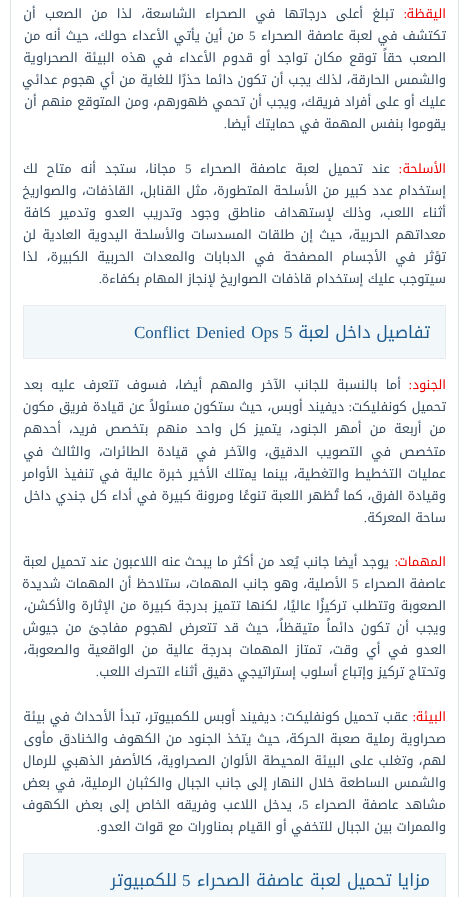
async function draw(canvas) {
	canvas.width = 469;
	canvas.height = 897;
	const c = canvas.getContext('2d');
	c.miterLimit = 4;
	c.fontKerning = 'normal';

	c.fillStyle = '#fff';
	c.fillRect(0, 0, 469, 897);
	c.strokeStyle = '#dce4e8';
	c.strokeRect(10.5, -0.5, 448, 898);
	c.direction = 'rtl';
	c.font = '13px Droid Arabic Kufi';
	c.fillStyle = '#ea0000';
	c.fillText('اليقظة', 446, 18);
	c.font = '13px Liberation Serif';
	c.fillText(':', 407, 18);
	c.wordSpacing = '4.75px';
	c.font = '13px Droid Arabic Kufi';
	c.fillStyle = '#34495e';
	c.fillText('تبلغ أعلى درجاتها في الصحراء الشاسعة، لذا من الصعب أن', 394, 18);
	c.wordSpacing = '0.5px';
	c.fillText('تكتشف في لعبة عاصفة الصحراء', 446, 40);
	c.wordSpacing = '0px';
	c.direction = 'ltr';
	c.font = '13px Liberation Serif';
	c.fillText('5', 249, 40);
	c.wordSpacing = '0.5px';
	c.direction = 'rtl';
	c.font = '13px Droid Arabic Kufi';
	c.fillText('من أين يأتي الأعداء حولك، حيث أنه من', 244, 40);
	c.wordSpacing = '2px';
	c.fillText('الصعب حقاً توقع مكان تواجد أو قدوم الأعداء في هذه البيئة الصحراوية', 446, 62);
	c.wordSpacing = '0.25px';
	c.fillText('والشمس الحارقة، لذلك يجب أن تكون دائما حذرًا للغاية من أي هجوم عدائي', 446, 84);
	c.wordSpacing = '0px';
	c.fillText('عليك أو على أفراد فريقك، ويجب أن تحمي ظهورهم، ومن المتوقع منهم أن', 446, 106);
	c.fillText('يقوموا بنفس المهمة في حمايتك أيضا', 446, 128);
	c.font = '13px Liberation Serif';
	c.fillText('.', 227, 128);
	c.font = '13px Droid Arabic Kufi';
	c.fillStyle = '#ea0000';
	c.fillText('الأسلحة', 446, 173);
	c.font = '13px Liberation Serif';
	c.fillText(':', 402, 173);
	c.wordSpacing = '4.5px';
	c.font = '13px Droid Arabic Kufi';
	c.fillStyle = '#34495e';
	c.fillText('عند تحميل لعبة عاصفة الصحراء', 390, 173);
	c.wordSpacing = '0px';
	c.direction = 'ltr';
	c.font = '13px Liberation Serif';
	c.fillText('5', 185, 173);
	c.wordSpacing = '4.5px';
	c.direction = 'rtl';
	c.font = '13px Droid Arabic Kufi';
	c.fillText('مجانا، ستجد أنه متاح لك', 176, 173);
	c.wordSpacing = '1.25px';
	c.fillText('إستخدام عدد كبير من الأسلحة المتطورة، مثل القنابل، القاذفات، والصواريخ', 446, 195);
	c.wordSpacing = '4px';
	c.fillText('أثناء اللعب، وذلك لإستهداف مناطق وجود وتدريب العدو وتدمير كافة', 446, 217);
	c.wordSpacing = '1.75px';
	c.fillText('معداتهم الحربية، حيث إن طلقات المسدسات والأسلحة اليدوية العادية لن', 446, 239);
	c.wordSpacing = '4.5px';
	c.fillText('تؤثر في الأجسام المصفحة في الدبابات والمعدات الحربية الكبيرة، لذا', 446, 261);
	c.wordSpacing = '0px';
	c.fillText('سيتوجب عليك إستخدام قاذفات الصواريخ لإنجاز المهام بكفاءة', 446, 283);
	c.font = '13px Liberation Serif';
	c.fillText('.', 102, 283);
	c.fillStyle = '#f2f8f9';
	c.beginPath();
	c.rect(23.5, 305.5, 422, 53);
	c.fill();
	c.strokeStyle = '#e6ecef';
	c.stroke();
	c.font = '17px Droid Arabic Kufi';
	c.fillStyle = '#1f5a8f';
	c.fillText('تفاصيل داخل لعبة', 430, 338);
	c.direction = 'ltr';
	c.font = '17px Liberation Serif';
	c.fillText('5', 284, 338);
	c.wordSpacing = '2px';
	c.fillText('Conflict Denied Ops', 134, 338);
	c.wordSpacing = '0px';
	c.direction = 'rtl';
	c.font = '13px Droid Arabic Kufi';
	c.fillStyle = '#ea0000';
	c.fillText('الجنود', 446, 389);
	c.font = '13px Liberation Serif';
	c.fillText(':', 412, 389);
	c.wordSpacing = '3.75px';
	c.font = '13px Droid Arabic Kufi';
	c.fillStyle = '#34495e';
	c.fillText('أما بالنسبة للجانب الآخر والمهم أيضا، فسوف تتعرف عليه بعد', 401, 389);
	c.wordSpacing = '0.5px';
	c.fillText('تحميل كونفليكت', 446, 411);
	c.wordSpacing = '0px';
	c.font = '13px Liberation Serif';
	c.fillText(':', 352, 411);
	c.wordSpacing = '0.5px';
	c.font = '13px Droid Arabic Kufi';
	c.fillText('ديفيند أوبس، حيث ستكون', 344, 411);
	c.fillText('مسئولاً عن قيادة فريق مكون', 190, 411);
	c.wordSpacing = '3.6px';
	c.fillText('من أربعة من أمهر الجنود، يتميز كل واحد منهم بتخصص فريد، أحدهم', 446, 433);
	c.wordSpacing = '3.75px';
	c.fillText('متخصص في التصويب الدقيق، والآخر في قيادة الطائرات، والثالث في', 446, 456);
	c.wordSpacing = '1.25px';
	c.fillText('عمليات التخطيط والتغطية، بينما يمتلك الأخير خبرة عالية في تنفيذ الأوامر', 446, 478);
	c.wordSpacing = '0.25px';
	c.fillText('وقيادة الفرق، كما تُظهر اللعبة تنوعًا ومرونة كبيرة في أداء كل جندي داخل', 446, 500);
	c.wordSpacing = '0px';
	c.fillText('ساحة المعركة', 446, 522);
	c.font = '13px Liberation Serif';
	c.fillText('.', 367, 522);
	c.font = '13px Droid Arabic Kufi';
	c.fillStyle = '#ea0000';
	c.fillText('المهمات', 446, 566);
	c.font = '13px Liberation Serif';
	c.fillText(':', 398, 566);
	c.font = '13px Droid Arabic Kufi';
	c.fillStyle = '#34495e';
	c.fillText('يوجد أيضا جانب يُعد من أكثر ما يبحث عنه اللاعبون عند تحميل لعبة', 389, 566);
	c.fillText('عاصفة الصحراء', 446, 588);
	c.direction = 'ltr';
	c.font = '13px Liberation Serif';
	c.fillText('5', 352, 588);
	c.wordSpacing = '0.5px';
	c.direction = 'rtl';
	c.font = '13px Droid Arabic Kufi';
	c.fillText('الأصلية، وهو جانب المهمات، ستلاحظ أن المهمات شديدة', 347, 588);
	c.wordSpacing = '1px';
	c.fillText('الصعوبة وتتطلب تركيزًا عاليًا، لكنها تتميز بدرجة كبيرة من الإثارة والأكشن،', 446, 610);
	c.wordSpacing = '2.4px';
	c.fillText('ويجب أن تكون دائماً متيقظاً، حيث قد تتعرض لهجوم مفاجئ من جيوش', 446, 632);
	c.wordSpacing = '3.1px';
	c.fillText('العدو في أي وقت، تمتاز المهمات بدرجة عالية من الواقعية والصعوبة،', 446, 654);
	c.wordSpacing = '0px';
	c.fillText('وتحتاج تركيز وإتباع أسلوب إستراتيجي دقيق أثناء التحرك اللعب', 446, 676);
	c.font = '13px Liberation Serif';
	c.fillText('.', 99, 676);
	c.font = '13px Droid Arabic Kufi';
	c.fillStyle = '#ea0000';
	c.fillText('البيئة', 446, 721);
	c.font = '13px Liberation Serif';
	c.fillText(':', 416, 721);
	c.font = '13px Droid Arabic Kufi';
	c.fillStyle = '#34495e';
	c.fillText('عقب تحميل كونفليكت', 408, 721);
	c.font = '13px Liberation Serif';
	c.fillText(':', 284, 721);
	c.font = '13px Droid Arabic Kufi';
	c.fillText('ديفيند أوبس للكمبيوتر، تبدأ الأحداث في بيئة', 276, 721);
	c.wordSpacing = '1px';
	c.fillText('صحراوية رملية صعبة الحركة، حيث يتخذ الجنود من الكهوف والخنادق مأوى', 446, 743);
	c.wordSpacing = '0.75px';
	c.fillText('لهم، وتغلب على البيئة المحيطة الألوان الصحراوية، كالأصفر الذهبي للرمال', 446, 765);
	c.fillText('والشمس الساطعة خلال النهار إلى جانب الجبال والكثبان الرملية، في بعض', 446, 787);
	c.wordSpacing = '2px';
	c.fillText('مشاهد عاصفة الصحراء', 446, 809);
	c.wordSpacing = '0px';
	c.direction = 'ltr';
	c.font = '13px Liberation Serif';
	c.fillText('5', 302, 809);
	c.wordSpacing = '1.75px';
	c.direction = 'rtl';
	c.font = '13px Droid Arabic Kufi';
	c.fillText('، يدخل اللاعب وفريقه الخاص إلى بعض الكهوف', 302, 809);
	c.wordSpacing = '0px';
	c.fillText('والممرات بين الجبال للتخفي أو القيام بمناورات مع قوات العدو', 446, 831);
	c.font = '13px Liberation Serif';
	c.fillText('.', 100, 831);
	c.fillStyle = '#f2f8f9';
	c.beginPath();
	c.rect(23.5, 853.5, 422, 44);
	c.fill();
	c.stroke();
	c.font = '17px Droid Arabic Kufi';
	c.fillStyle = '#1f5a8f';
	c.fillText('مزايا تحميل لعبة عاصفة الصحراء', 430, 886);
	c.direction = 'ltr';
	c.font = '17px Liberation Serif';
	c.fillText('5', 182, 886);
	c.direction = 'rtl';
	c.font = '17px Droid Arabic Kufi';
	c.fillText('للكمبيوتر', 177, 886);
}

draw(document.querySelector('canvas'));
